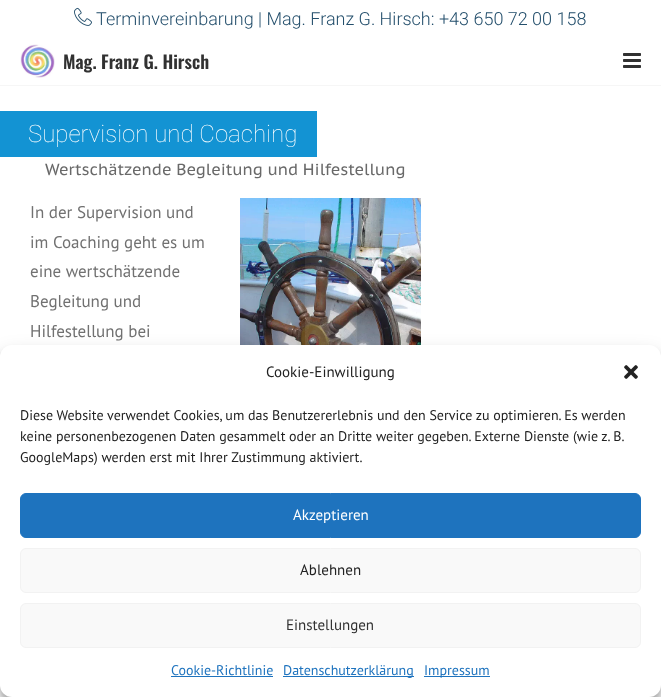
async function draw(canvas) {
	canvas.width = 661;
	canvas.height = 697;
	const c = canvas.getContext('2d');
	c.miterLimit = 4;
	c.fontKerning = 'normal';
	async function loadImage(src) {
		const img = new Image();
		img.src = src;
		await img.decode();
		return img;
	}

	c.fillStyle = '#fff';
	c.fillRect(0, 0, 661, 697);
	c.drawImage(await loadImage('img1.png'), 74, 7, 18, 19);
	c.font = '300 18px Roboto';
	c.fillStyle = '#244f6c';
	c.fillText('Terminvereinbarung | Mag. Franz G. Hirsch: +43 650 72 00 158', 96, 25);
	c.fillStyle = '#f6f6f6';
	c.fillRect(0, 85, 661, 1);
	c.drawImage(await loadImage('img2.png'), 20, 44, 35, 34);
	c.font = '600 18px Oswald';
	c.fillStyle = '#313131';
	c.fillText('Mag. Franz G. Hirsch', 63, 69);
	c.drawImage(await loadImage('img3.png'), 623, 53, 18, 15);
	c.fillStyle = '#1393d3';
	c.fillRect(0, 111, 317, 46);
	c.font = '100 24px Roboto';
	c.fillStyle = '#fff';
	c.fillText('Supervision und Coaching', 28, 142);
	c.font = '16px PT Sans Caption';
	c.fillStyle = '#696969';
	c.fillText('Wertschätzende Begleitung und Hilfestellung', 45, 175);
	c.font = '17px PT Sans';
	c.fillStyle = '#717171';
	for (const [text, x, y] of [
		['In der Supervision und', 30, 218],
		['im Coaching geht es um', 30, 248],
		['eine wertschätzende', 30, 277],
		['Begleitung und', 30, 307],
		['Hilfestellung bei', 30, 337],
	]) {
		c.fillText(text, x, y);
	}
	c.drawImage(await loadImage('img4.png'), 240, 198, 181, 147);
	c.fillStyle = '#ffffff12';
	c.fillRect(305, 223, 52, 122);
	c.fillStyle = '#3a85c812';
	c.beginPath();
	c.arc(331, 349, 26, 0, 2 * Math.PI);
	c.fill();
	c.fillStyle = '#0000003b';
	c.filter = 'blur(3px)';
	c.beginPath();
	c.roundRect(0, 351, 661, 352, 12);
	c.fill();
	c.filter = 'none';
	c.fillStyle = '#00000030';
	c.filter = 'blur(10px)';
	c.beginPath();
	c.roundRect(0, 355, 661, 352, 12);
	c.fill();
	c.filter = 'none';
	c.fillStyle = '#fff';
	c.beginPath();
	c.roundRect(0, 345, 661, 352, 12);
	c.fill();
	c.font = '15px PT Sans';
	c.fillStyle = '#222';
	c.fillText('Cookie-Einwilligung', 266, 377);
	c.drawImage(await loadImage('img5.png'), 624, 365, 14, 14);
	c.font = '14px PT Sans';
	for (const [text, x, y] of [
		['Diese Website verwendet Cookies, um das Benutzererlebnis und den Service zu optimieren. Es werden', 20, 420],
		['keine personenbezogenen Daten gesammelt oder an Dritte weiter gegeben. Externe Dienste (wie z. B.', 20, 441],
		['GoogleMaps) werden erst mit Ihrer Zustimmung aktiviert.', 20, 462],
	]) {
		c.fillText(text, x, y);
	}
	c.fillStyle = '#1e73be';
	c.beginPath();
	c.roundRect(20.5, 493.5, 620, 44, 5.5);
	c.fill();
	c.strokeStyle = '#1e73be';
	c.stroke();
	c.font = '15px PT Sans';
	c.fillStyle = '#fff';
	c.fillText('Akzeptieren', 293, 520);
	c.fillStyle = '#f9f9f9';
	c.beginPath();
	c.roundRect(20.5, 548.5, 620, 44, 5.5);
	c.fill();
	c.strokeStyle = '#f2f2f2';
	c.stroke();
	c.fillStyle = '#222';
	c.fillText('Ablehnen', 300, 575);
	c.fillStyle = '#f9f9f9';
	c.beginPath();
	c.roundRect(20.5, 603.5, 620, 44, 5.5);
	c.fill();
	c.stroke();
	c.fillStyle = '#313131';
	c.fillText('Einstellungen', 286, 630);
	c.font = '14px PT Sans';
	c.fillStyle = '#1e73be';
	c.fillText('Cookie-Richtlinie', 171, 675);
	c.fillRect(171, 676, 102, 1);
	c.fillRect(283, 676, 131, 1);
	c.fillText('Datenschutzerklärung', 283, 675);
	c.fillRect(424, 676, 66, 1);
	c.fillText('Impressum', 424, 675);
}

draw(document.querySelector('canvas'));
